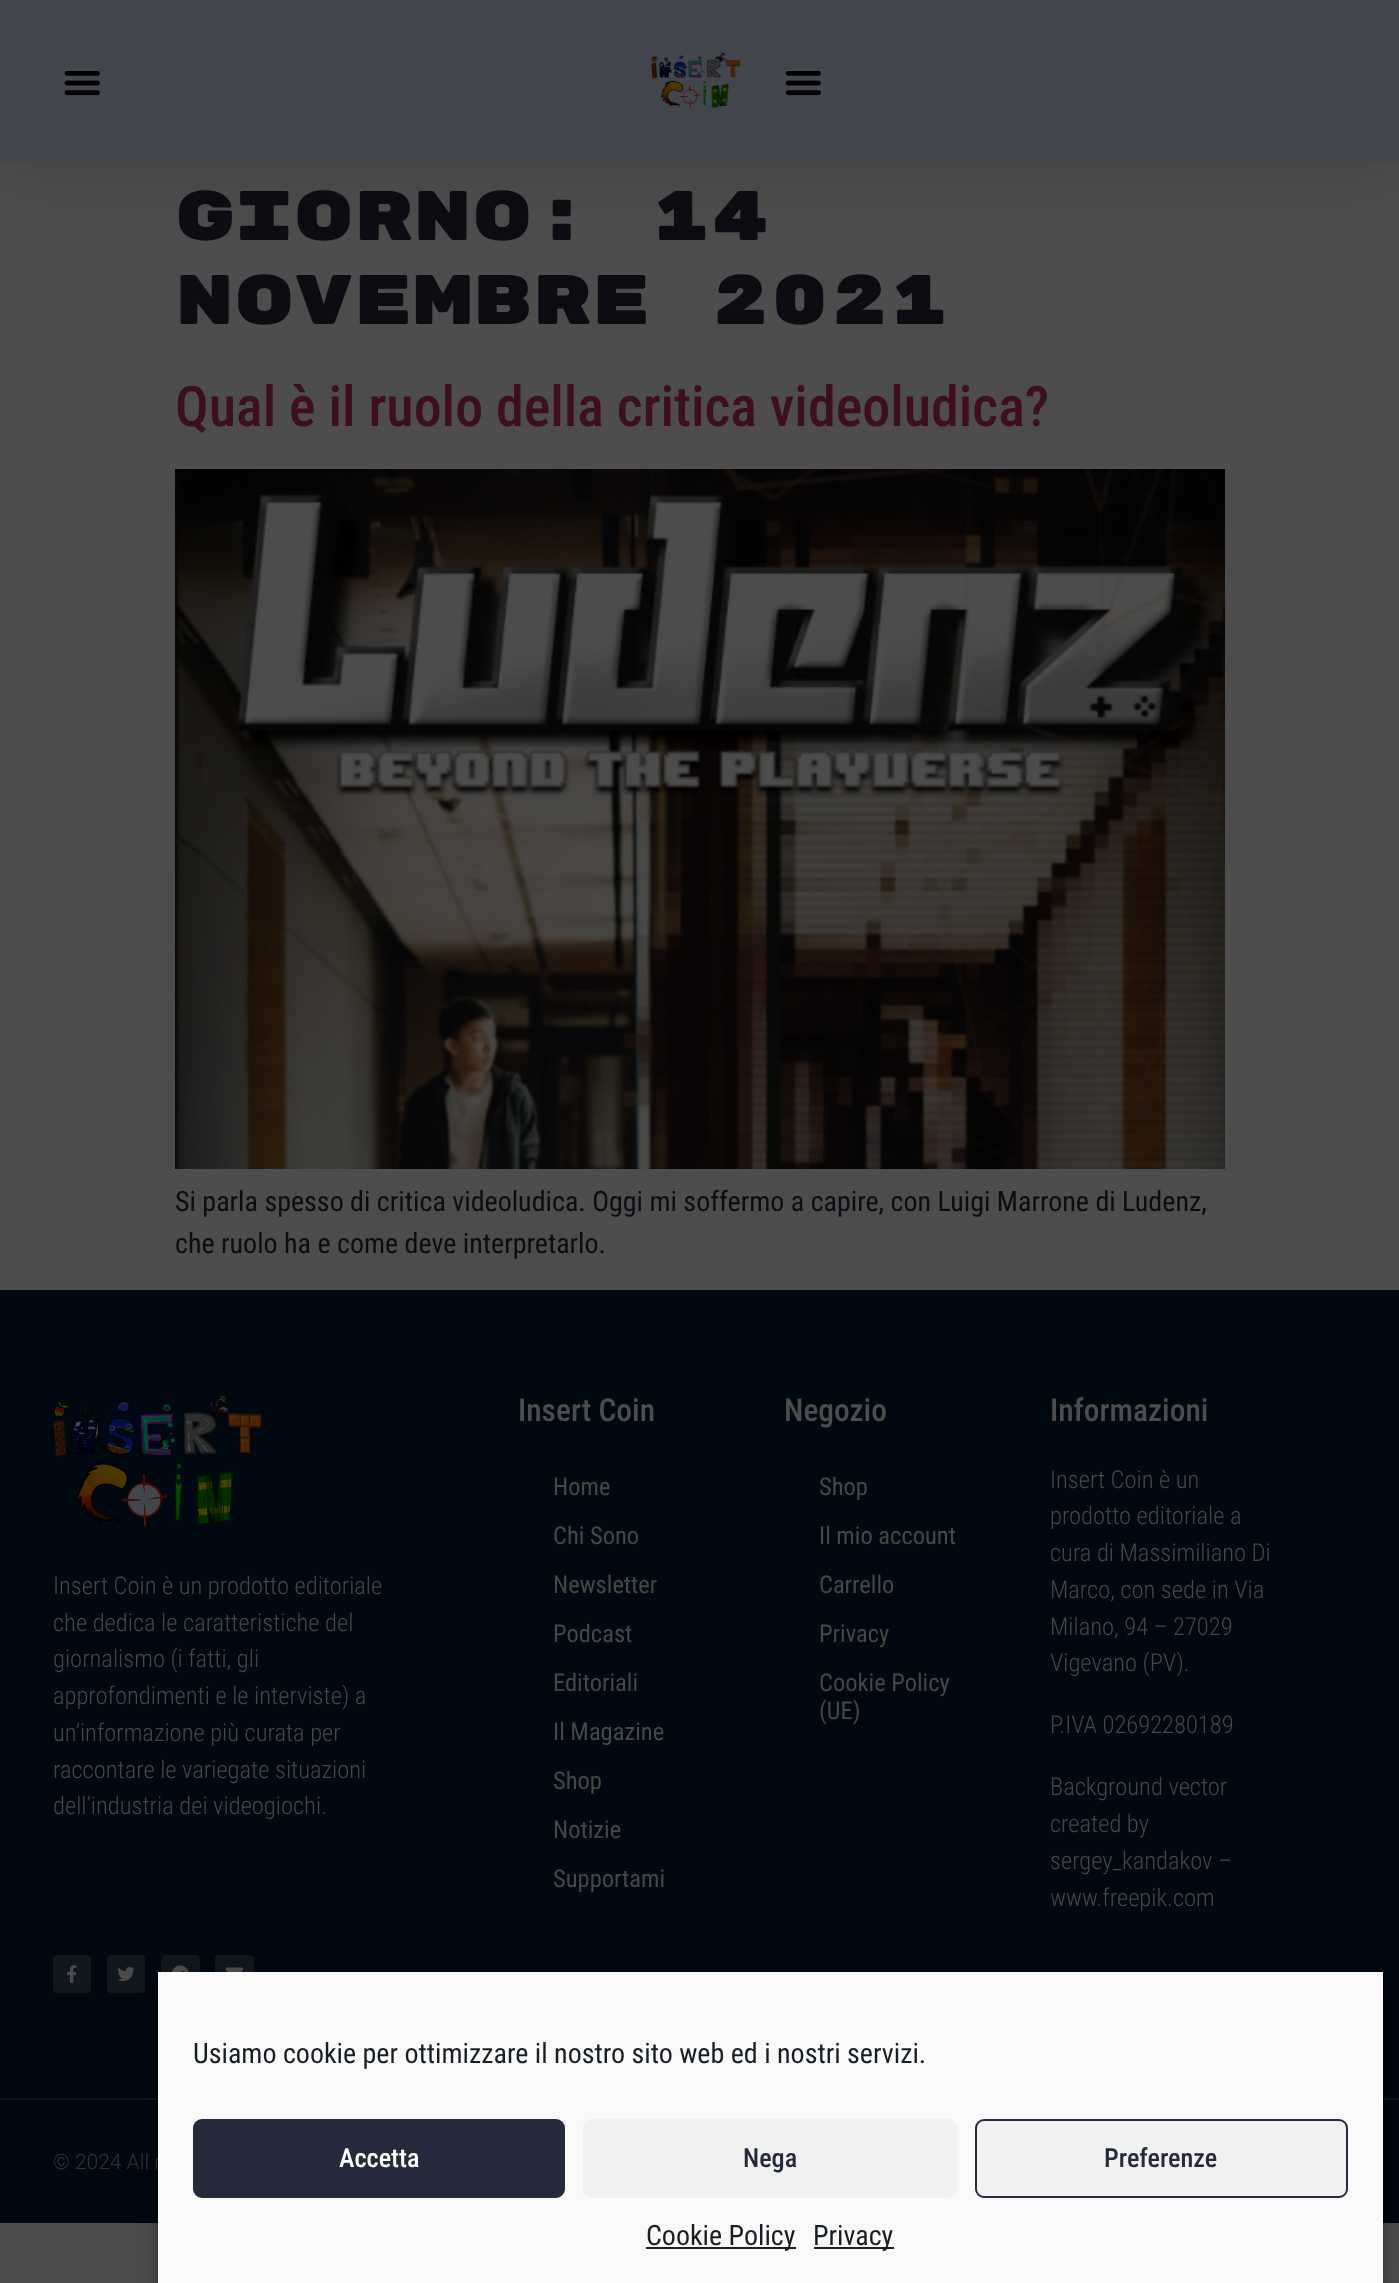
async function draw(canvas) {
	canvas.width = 1399;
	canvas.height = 2283;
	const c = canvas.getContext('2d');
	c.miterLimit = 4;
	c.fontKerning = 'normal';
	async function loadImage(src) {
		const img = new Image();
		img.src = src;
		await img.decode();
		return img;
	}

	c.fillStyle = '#4d4d4d';
	c.fillRect(0, 0, 1399, 2283);
	c.fillStyle = '#00000029';
	c.filter = 'blur(35px)';
	c.beginPath();
	c.rect(0, 0, 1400, 163);
	c.fill();
	c.filter = 'none';
	c.fillStyle = '#43464d';
	c.fillRect(0, 0, 1399, 163);
	c.drawImage(await loadImage('img1.png'), 64, 71, 36, 25);
	c.drawImage(await loadImage('img2.png'), 651, 52, 89, 57);
	c.drawImage(await loadImage('img1.png'), 785, 71, 36, 25);
	c.font = '70px Rubik Mono One';
	c.fillStyle = '#0b0d12';
	c.fillText('Giorno: 14', 175, 240);
	c.fillText('Novembre 2021', 175, 324);
	c.font = '500 56px Roboto Condensed';
	c.fillStyle = '#3d0f1f';
	c.fillText('Qual è il ruolo della critica videoludica?', 175, 426);
	c.drawImage(await loadImage('img3.png'), 175, 469, 1050, 700);
	c.font = '28px Roboto Condensed';
	c.fillStyle = '#0b0d12';
	c.fillText('Si parla spesso di critica videoludica. Oggi mi soffermo a capire, con Luigi Marrone di Ludenz,', 175, 1211);
	c.fillText('che ruolo ha e come deve interpretarlo.', 175, 1253);
	c.fillStyle = '#000811';
	c.fillRect(0, 1290, 1399, 808);
	c.drawImage(await loadImage('img4.png'), 53, 1395, 209, 133);
	c.font = '300 24.5px Roboto Condensed';
	c.fillStyle = '#464747';
	for (const [text, x, y] of [
		['Insert Coin è un prodotto editoriale', 53, 1594],
		['che dedica le caratteristiche del', 53, 1631],
		['giornalismo (i fatti, gli', 53, 1667],
		['approfondimenti e le interviste) a', 53, 1704],
		['un’informazione più curata per', 53, 1741],
		['raccontare le variegate situazioni', 53, 1778],
		['dell’industria dei videogiochi.', 53, 1814],
	]) {
		c.fillText(text, x, y);
	}
	c.fillStyle = '#10171d';
	c.beginPath();
	c.roundRect(53, 1955, 38, 38, 4);
	c.fill();
	c.drawImage(await loadImage('img5.png'), 67, 1965, 10, 18);
	c.beginPath();
	c.roundRect(107, 1955, 38, 38, 4);
	c.fill();
	c.drawImage(await loadImage('img6.png'), 117, 1966, 18, 16);
	c.beginPath();
	c.roundRect(161, 1955, 39, 38, 4);
	c.fill();
	c.drawImage(await loadImage('img7.png'), 172, 1965, 17, 7);
	c.beginPath();
	c.roundRect(215, 1955, 39, 38, 4);
	c.fill();
	c.drawImage(await loadImage('img8.png'), 226, 1967, 17, 5);
	c.font = '500 31.5px Roboto Condensed';
	c.fillStyle = '#4d4d4d';
	c.fillText('Insert Coin', 518, 1421);
	c.font = '24.5px Roboto Condensed';
	c.fillStyle = '#464747';
	for (const [text, x, y] of [
		['Home', 553, 1495],
		['Chi Sono', 553, 1544],
		['Newsletter', 553, 1593],
		['Podcast', 553, 1642],
		['Editoriali', 553, 1691],
		['Il Magazine', 553, 1740],
		['Shop', 553, 1789],
		['Notizie', 553, 1838],
		['Supportami', 553, 1887],
	]) {
		c.fillText(text, x, y);
	}
	c.font = '500 31.5px Roboto Condensed';
	c.fillStyle = '#4d4d4d';
	c.fillText('Negozio', 784, 1421);
	c.font = '24.5px Roboto Condensed';
	c.fillStyle = '#464747';
	for (const [text, x, y] of [
		['Shop', 819, 1495],
		['Il mio account', 819, 1544],
		['Carrello', 819, 1593],
		['Privacy', 819, 1642],
		['Cookie Policy', 819, 1691],
		['(UE)', 819, 1719],
	]) {
		c.fillText(text, x, y);
	}
	c.font = '500 31.5px Roboto Condensed';
	c.fillStyle = '#4d4d4d';
	c.fillText('Informazioni', 1050, 1421);
	c.font = '300 24.5px Roboto Condensed';
	c.fillStyle = '#464747';
	for (const [text, x, y] of [
		['Insert Coin è un', 1050, 1488],
		['prodotto editoriale a', 1050, 1524],
		['cura di Massimiliano Di', 1050, 1561],
		['Marco, con sede in Via', 1050, 1598],
		['Milano, 94 – 27029', 1050, 1635],
		['Vigevano (PV).', 1050, 1671],
		['P.IVA 02692280189', 1050, 1733],
		['Background vector', 1050, 1795],
		['created by', 1050, 1832],
		['sergey_kandakov –', 1050, 1869],
		['www.freepik.com', 1050, 1906],
	]) {
		c.fillText(text, x, y);
	}
	c.fillStyle = '#000811';
	c.fillRect(0, 2100, 1399, 123);
	c.fillStyle = '#0e151c';
	c.fillRect(0, 2098, 1399, 2);
	c.font = '300 21px Roboto';
	c.fillStyle = '#343434';
	c.fillText('© 2024 All r', 53, 2169);
	c.fillStyle = '#0000003b';
	c.filter = 'blur(5px)';
	c.beginPath();
	c.rect(158, 1983, 1225, 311);
	c.fill();
	c.filter = 'none';
	c.fillStyle = '#00000030';
	c.filter = 'blur(17.5px)';
	c.beginPath();
	c.rect(158, 1990, 1225, 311);
	c.fill();
	c.filter = 'none';
	c.fillStyle = '#f9f9f9';
	c.fillRect(158, 1972, 1225, 311);
	c.font = '28px Roboto Condensed';
	c.fillStyle = '#191e23';
	c.fillText('Usiamo cookie per ottimizzare il nostro sito web ed i nostri servizi.', 193, 2063);
	c.fillStyle = '#252b3c';
	c.beginPath();
	c.roundRect(194, 2120, 370, 77, 8);
	c.fill();
	c.strokeStyle = '#252b3c';
	c.lineWidth = 2;
	c.stroke();
	c.font = '500 26.25px Roboto Condensed';
	c.fillStyle = '#fff';
	c.fillText('Accetta', 339, 2167);
	c.fillStyle = '#f1f1f1';
	c.beginPath();
	c.roundRect(583, 2119, 374, 79, 9);
	c.fill();
	c.fillStyle = '#252b3c';
	c.fillText('Nega', 743, 2167);
	c.fillStyle = '#f1f1f1';
	c.beginPath();
	c.roundRect(976, 2120, 371, 77, 8);
	c.fill();
	c.stroke();
	c.fillStyle = '#252b3c';
	c.fillText('Preferenze', 1104, 2167);
	c.fillStyle = '#191e23';
	c.fillRect(646, 2247, 150, 2);
	c.font = '28px Roboto Condensed';
	c.fillText('Cookie Policy', 646, 2245);
	c.fillRect(814, 2247, 80, 2);
	c.fillText('Privacy', 813, 2245);
}

draw(document.querySelector('canvas'));
